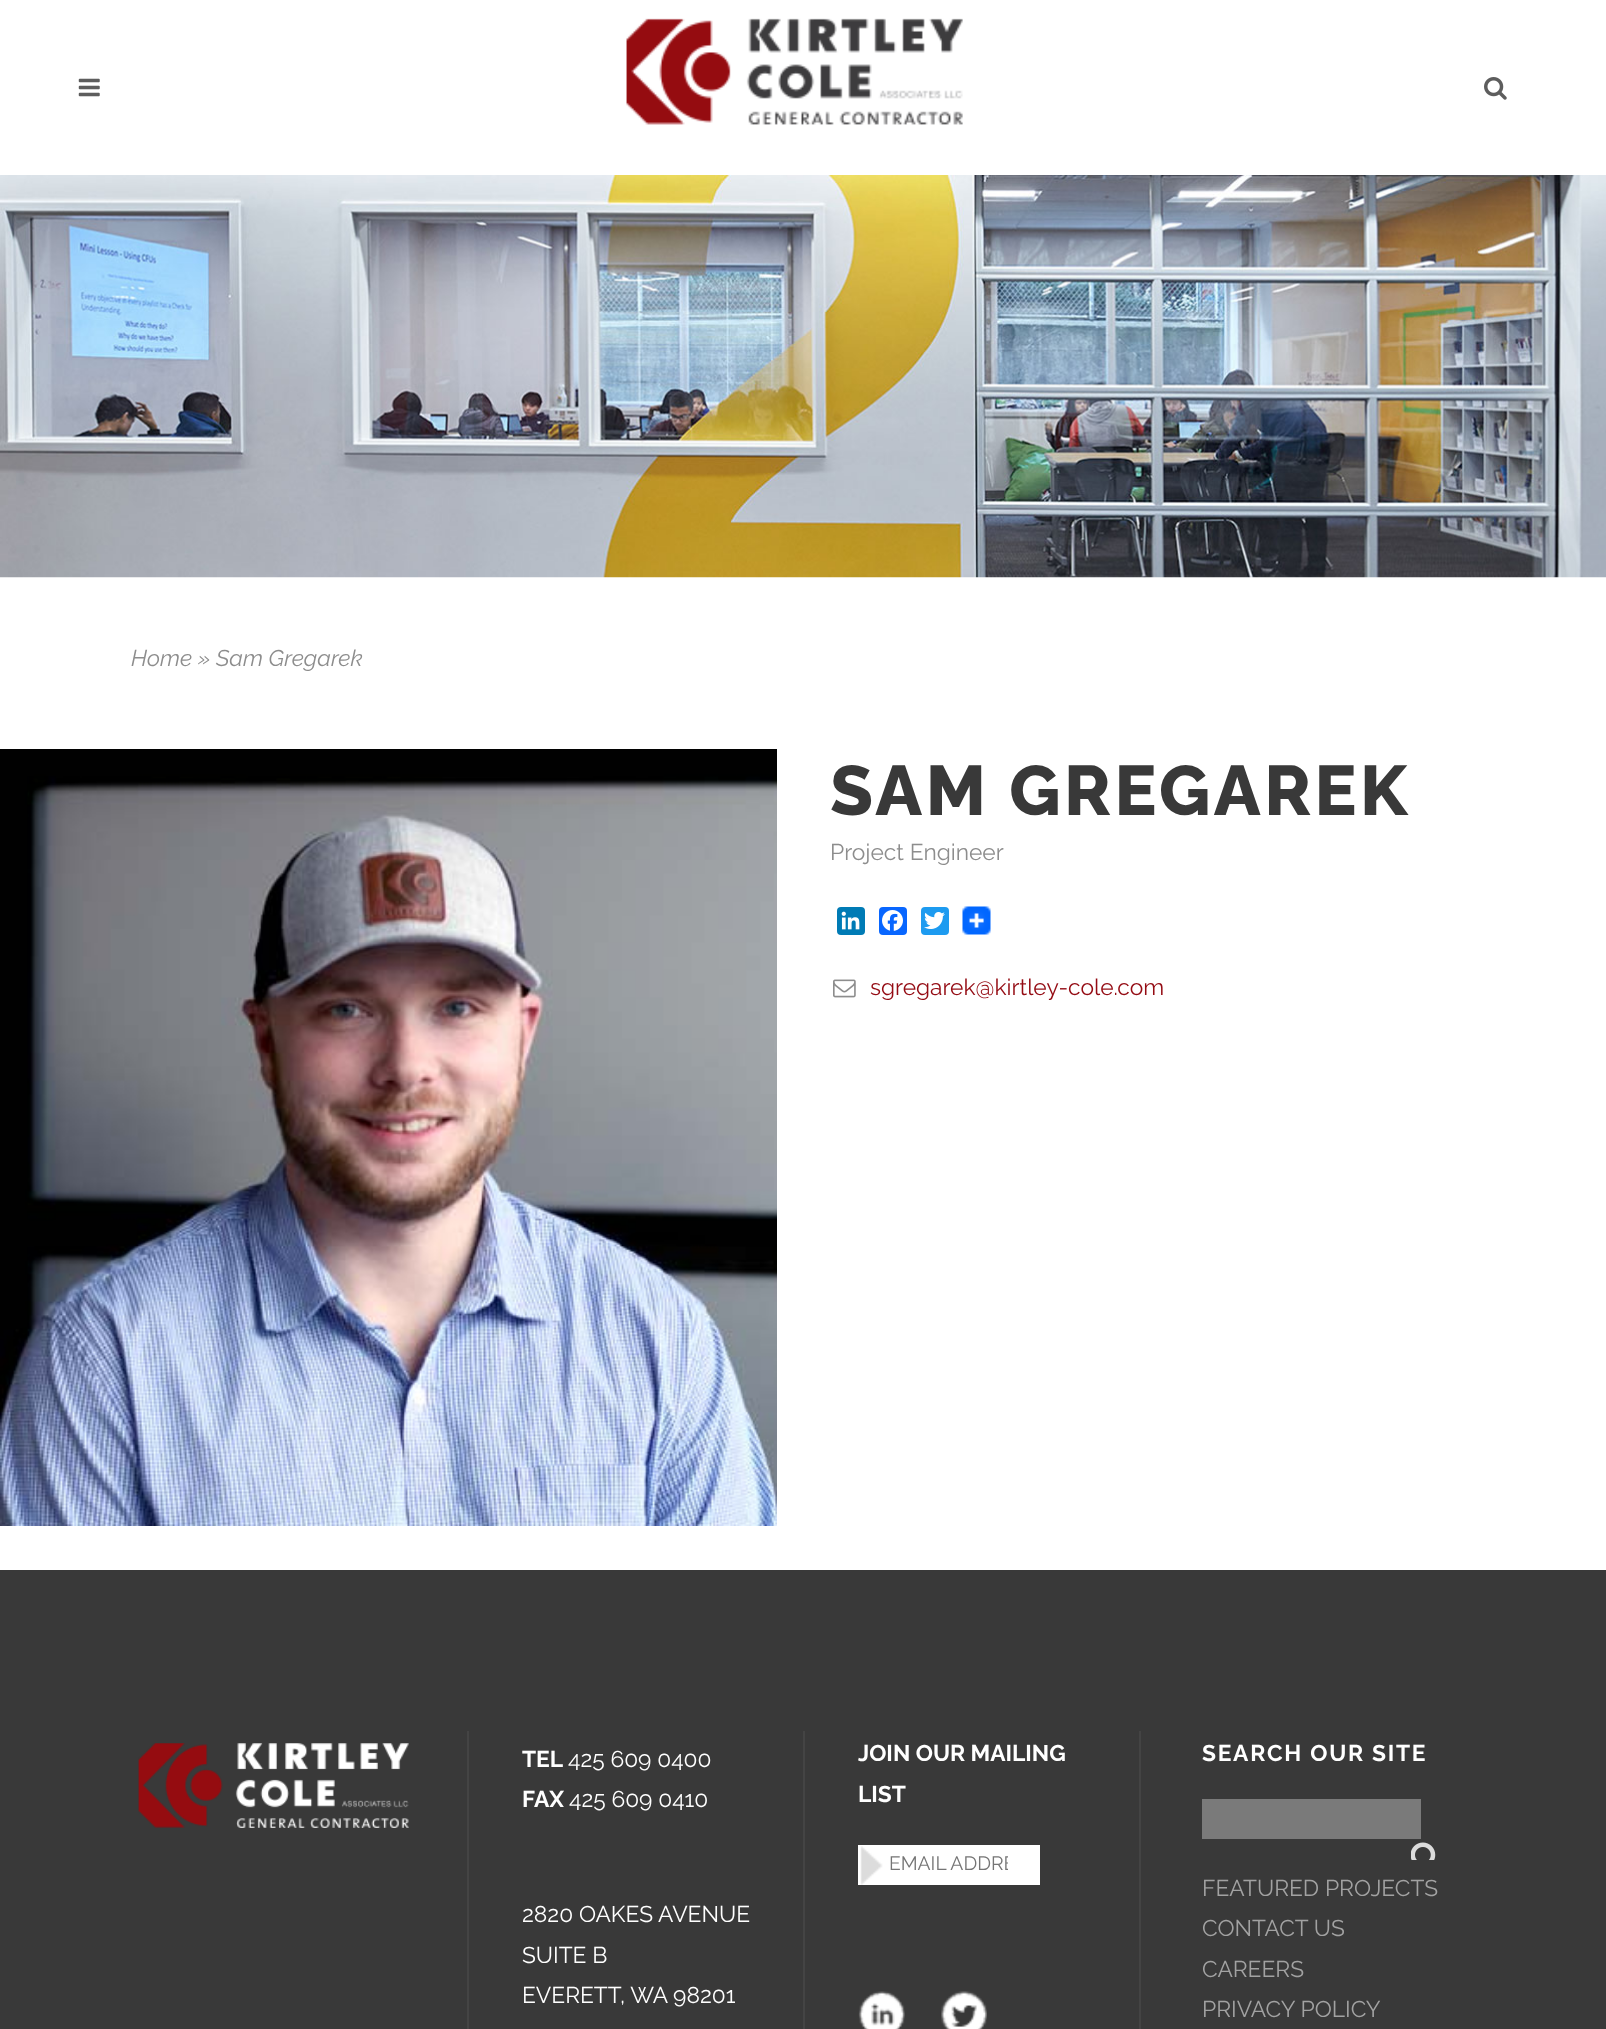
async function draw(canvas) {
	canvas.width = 1606;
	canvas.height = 2029;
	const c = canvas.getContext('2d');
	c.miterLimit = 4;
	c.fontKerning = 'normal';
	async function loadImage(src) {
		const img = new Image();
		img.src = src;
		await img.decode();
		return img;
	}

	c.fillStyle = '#fff';
	c.fillRect(0, 0, 1606, 2029);
	c.drawImage(await loadImage('img1.png'), 78, 78, 22, 19);
	c.drawImage(await loadImage('img2.png'), 626, 18, 337, 107);
	c.drawImage(await loadImage('img3.png'), 1484, 77, 23, 23);
	c.drawImage(await loadImage('img4.png'), 0, 175, 1606, 403);
	c.font = 'italic 22.75px Raleway';
	c.fillStyle = '#8d8d8d';
	c.fillText('Home » Sam Gregarek', 131, 666);
	c.drawImage(await loadImage('img5.png'), 0, 749, 777, 777);
	c.letterSpacing = '3.5px';
	c.font = '800 70px Raleway';
	c.fillStyle = '#393939';
	c.fillText('SAM GREGAREK', 830, 815);
	c.letterSpacing = '0px';
	c.font = '22.75px Raleway';
	c.fillStyle = '#8d8d8d';
	c.fillText('Project Engineer', 830, 860);
	c.fillStyle = '#007bb5';
	c.beginPath();
	c.roundRect(837, 907, 28, 28, 4);
	c.fill();
	c.drawImage(await loadImage('img6.png'), 841, 911, 19, 19);
	c.fillStyle = '#0866ff';
	c.beginPath();
	c.roundRect(879, 907, 28, 28, 4);
	c.fill();
	c.drawImage(await loadImage('img7.png'), 882, 910, 21, 21);
	c.fillStyle = '#1d9bf0';
	c.beginPath();
	c.roundRect(921, 907, 28, 28, 4);
	c.fill();
	c.drawImage(await loadImage('img8.png'), 924, 912, 21, 17);
	c.drawImage(await loadImage('img9.png'), 962, 906, 29, 29);
	c.drawImage(await loadImage('img10.png'), 833, 979, 23, 19);
	c.fillStyle = '#940b13';
	c.fillText('sgregarek@kirtley-cole.com', 870, 995);
	c.fillStyle = '#393939';
	c.fillRect(0, 1570, 1606, 459);
	c.drawImage(await loadImage('img11.png'), 138, 1743, 271, 85);
	c.fillStyle = '#444';
	c.fillRect(467, 1731, 2, 298);
	c.font = 'bold 22.75px Raleway';
	c.fillStyle = '#fff';
	c.fillText('TEL', 522, 1767);
	c.font = '22.75px Raleway';
	c.fillText('425 609 0400', 568, 1767);
	c.font = 'bold 22.75px Raleway';
	c.fillText('FAX', 522, 1807);
	c.font = '22.75px Raleway';
	for (const [text, x, y] of [
		['425 609 0410', 569, 1807],
		['2820 OAKES AVENUE', 522, 1922],
		['SUITE B', 522, 1963],
		['EVERETT, WA 98201', 522, 2003],
	]) {
		c.fillText(text, x, y);
	}
	c.fillStyle = '#444';
	c.fillRect(803, 1731, 2, 298);
	c.font = 'bold 22.75px Raleway';
	c.fillStyle = '#fff';
	c.fillText('JOIN OUR MAILING', 858, 1761);
	c.fillText('LIST', 858, 1802);
	c.fillRect(858, 1845, 182, 40);
	c.drawImage(await loadImage('img12.png'), 860, 1846, 23, 39);
	c.save();
	c.beginPath();
	c.rect(889, 1853, 119, 23);
	c.clip();
	c.font = '19.25px Raleway';
	c.fillStyle = '#757575';
	c.fillText('EMAIL ADDRE', 889, 1870);
	c.restore();
	c.drawImage(await loadImage('img13.png'), 858, 1991, 47, 38);
	c.drawImage(await loadImage('img14.png'), 941, 1991, 46, 38);
	c.fillStyle = '#444';
	c.fillRect(1139, 1731, 2, 298);
	c.letterSpacing = '1.75px';
	c.fillStyle = '#fff';
	c.fillText('SEARCH OUR SITE', 1202, 1761);
	c.fillStyle = '#7a7a7a';
	c.fillRect(1202, 1799, 219, 40);
	c.drawImage(await loadImage('img15.png'), 1411, 1842, 25, 18);
	c.letterSpacing = '0px';
	c.font = '22.75px Raleway';
	c.fillStyle = '#a2a2a2';
	for (const [text, x, y] of [
		['FEATURED PROJECTS', 1202, 1896],
		['CONTACT US', 1202, 1936],
		['CAREERS', 1202, 1977],
		['PRIVACY POLICY', 1202, 2017],
	]) {
		c.fillText(text, x, y);
	}
}

draw(document.querySelector('canvas'));
